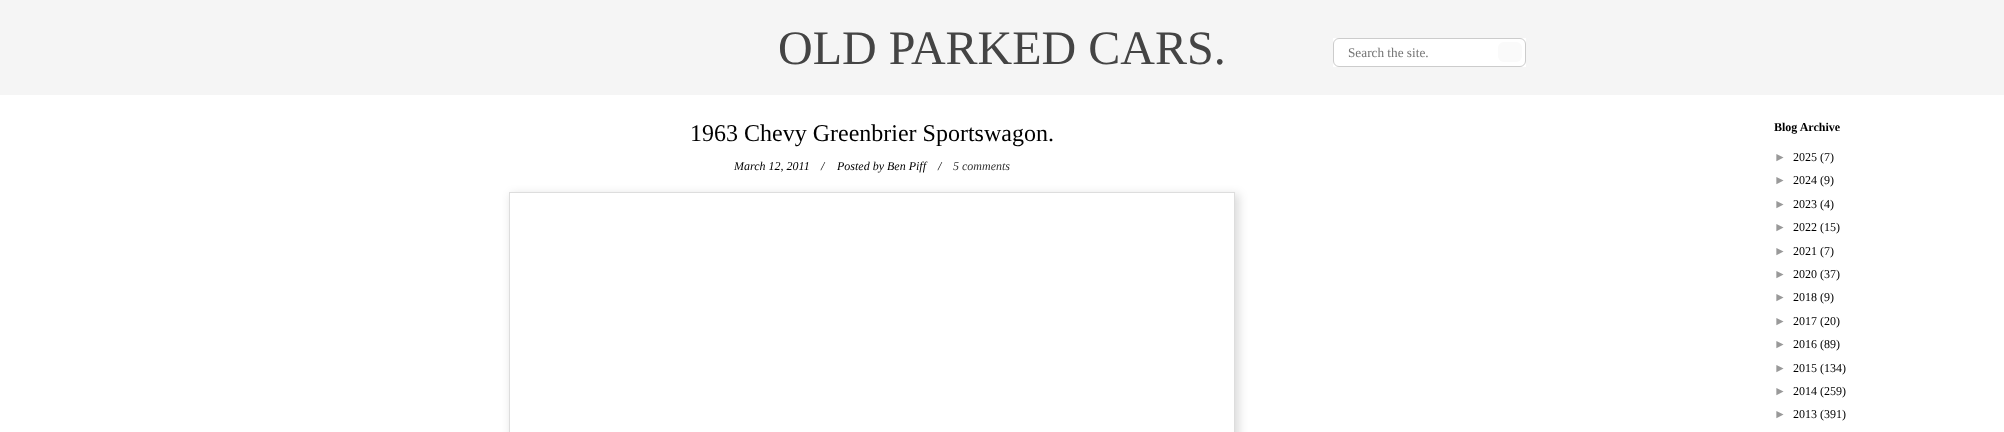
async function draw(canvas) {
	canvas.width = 2004;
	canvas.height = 432;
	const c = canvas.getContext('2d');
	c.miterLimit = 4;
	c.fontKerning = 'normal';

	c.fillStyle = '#fff';
	c.fillRect(0, 0, 2004, 432);
	c.fillStyle = '#f5f5f5';
	c.fillRect(0, 0, 2004, 95);
	c.font = '48px Liberation Serif';
	c.fillStyle = '#444';
	c.fillText('OLD PARKED CARS.', 778, 64);
	c.fillStyle = '#fff';
	c.fillRect(1333, 38, 193, 29);
	c.beginPath();
	c.roundRect(1333.5, 38.5, 192, 28, 5.5);
	c.strokeStyle = '#ccc';
	c.stroke();
	c.font = '13.25px Liberation Serif';
	c.fillStyle = '#757575';
	c.fillText('Search the site.', 1348, 57);
	c.fillStyle = '#fafafa';
	c.beginPath();
	c.roundRect(1498, 42, 24, 20, 6);
	c.fill();
	c.font = '24px Liberation Serif';
	c.fillStyle = '#000';
	c.fillText('1963 Chevy Greenbrier Sportswagon.', 690, 141);
	c.font = 'italic 12px Liberation Serif';
	for (const [text, x, y] of [
		['March 12, 2011', 734, 170],
		['/', 821, 170],
		['Posted by Ben Piff', 837, 170],
		['/', 938, 170],
	]) {
		c.fillText(text, x, y);
	}
	c.fillStyle = '#333';
	c.fillText('5 comments', 953, 170);
	c.save();
	c.beginPath();
	c.moveTo(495, 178);
	c.lineTo(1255, 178);
	c.lineTo(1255, 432);
	c.lineTo(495, 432);
	c.closePath();
	c.moveTo(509, 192);
	c.lineTo(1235, 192);
	c.lineTo(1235, 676);
	c.lineTo(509, 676);
	c.closePath();
	c.clip('evenodd');
	c.fillStyle = '#00000024';
	c.filter = 'blur(5px)';
	c.beginPath();
	c.rect(511, 194, 728, 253);
	c.fill();
	c.filter = 'none';
	c.restore();
	c.strokeStyle = '#ddd';
	c.strokeRect(509.5, 192.5, 725, 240);
	c.font = 'bold 12px Liberation Serif';
	c.fillStyle = '#000';
	c.fillText('Blog Archive', 1774, 131);
	c.font = '12px Liberation Sans';
	c.fillStyle = '#999';
	c.fillText('►', 1774, 161);
	c.font = '12px Liberation Serif';
	c.fillStyle = '#000';
	c.fillText('2025 (7)', 1793, 161);
	c.font = '12px Liberation Sans';
	c.fillStyle = '#999';
	c.fillText('►', 1774, 184);
	c.font = '12px Liberation Serif';
	c.fillStyle = '#000';
	c.fillText('2024 (9)', 1793, 184);
	c.font = '12px Liberation Sans';
	c.fillStyle = '#999';
	c.fillText('►', 1774, 208);
	c.font = '12px Liberation Serif';
	c.fillStyle = '#000';
	c.fillText('2023 (4)', 1793, 208);
	c.font = '12px Liberation Sans';
	c.fillStyle = '#999';
	c.fillText('►', 1774, 231);
	c.font = '12px Liberation Serif';
	c.fillStyle = '#000';
	c.fillText('2022 (15)', 1793, 231);
	c.font = '12px Liberation Sans';
	c.fillStyle = '#999';
	c.fillText('►', 1774, 255);
	c.font = '12px Liberation Serif';
	c.fillStyle = '#000';
	c.fillText('2021 (7)', 1793, 255);
	c.font = '12px Liberation Sans';
	c.fillStyle = '#999';
	c.fillText('►', 1774, 278);
	c.font = '12px Liberation Serif';
	c.fillStyle = '#000';
	c.fillText('2020 (37)', 1793, 278);
	c.font = '12px Liberation Sans';
	c.fillStyle = '#999';
	c.fillText('►', 1774, 301);
	c.font = '12px Liberation Serif';
	c.fillStyle = '#000';
	c.fillText('2018 (9)', 1793, 301);
	c.font = '12px Liberation Sans';
	c.fillStyle = '#999';
	c.fillText('►', 1774, 325);
	c.font = '12px Liberation Serif';
	c.fillStyle = '#000';
	c.fillText('2017 (20)', 1793, 325);
	c.font = '12px Liberation Sans';
	c.fillStyle = '#999';
	c.fillText('►', 1774, 348);
	c.font = '12px Liberation Serif';
	c.fillStyle = '#000';
	c.fillText('2016 (89)', 1793, 348);
	c.font = '12px Liberation Sans';
	c.fillStyle = '#999';
	c.fillText('►', 1774, 372);
	c.font = '12px Liberation Serif';
	c.fillStyle = '#000';
	c.fillText('2015 (134)', 1793, 372);
	c.font = '12px Liberation Sans';
	c.fillStyle = '#999';
	c.fillText('►', 1774, 395);
	c.font = '12px Liberation Serif';
	c.fillStyle = '#000';
	c.fillText('2014 (259)', 1793, 395);
	c.font = '12px Liberation Sans';
	c.fillStyle = '#999';
	c.fillText('►', 1774, 418);
	c.font = '12px Liberation Serif';
	c.fillStyle = '#000';
	c.fillText('2013 (391)', 1793, 418);
}

draw(document.querySelector('canvas'));
